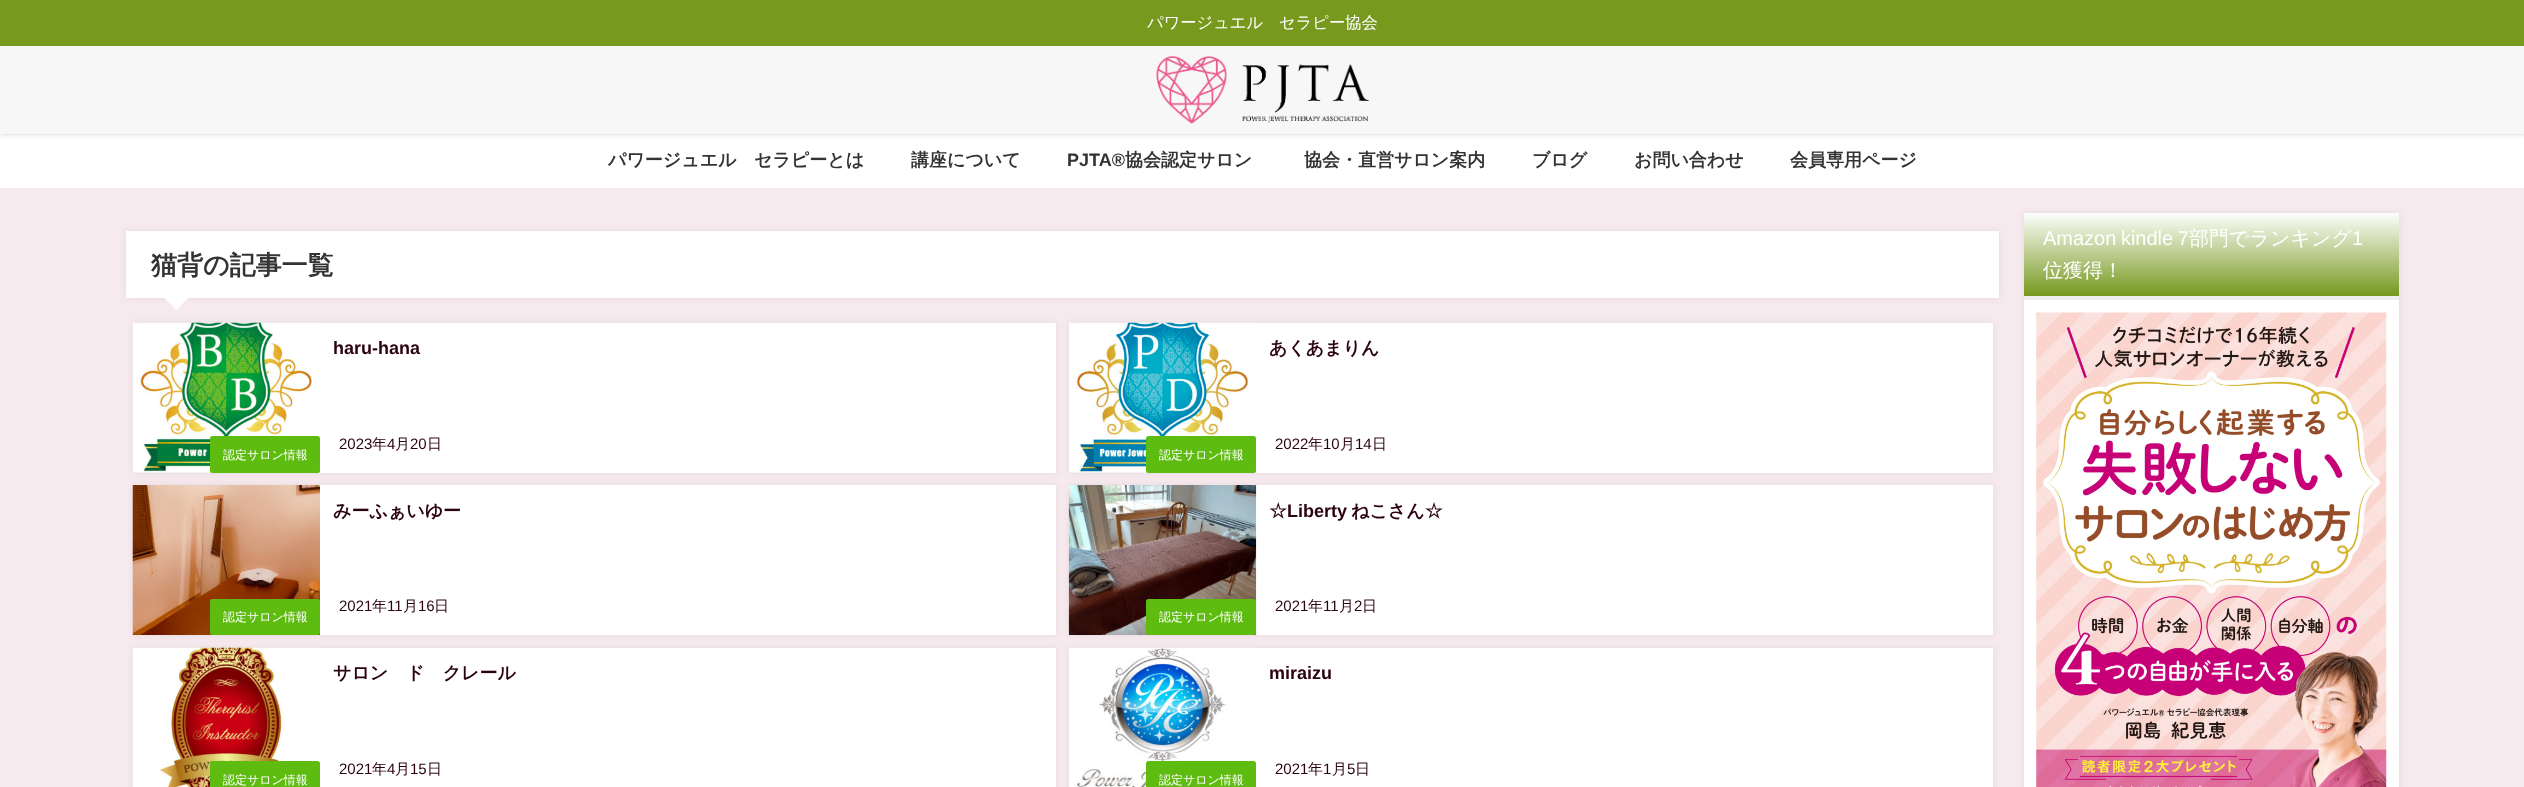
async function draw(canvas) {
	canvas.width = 2524;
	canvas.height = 787;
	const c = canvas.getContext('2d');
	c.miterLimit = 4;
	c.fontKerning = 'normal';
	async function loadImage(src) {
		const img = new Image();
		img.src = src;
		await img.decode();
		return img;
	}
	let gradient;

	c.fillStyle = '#f7eaef';
	c.fillRect(0, 0, 2524, 787);
	c.fillStyle = '#fff';
	c.fillRect(0, 134, 2524, 54);
	c.fillStyle = '#00000033';
	c.filter = 'blur(2.5px)';
	c.beginPath();
	c.rect(0, 0, 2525, 134);
	c.fill();
	c.filter = 'none';
	c.fillStyle = '#f7f7f7';
	c.fillRect(0, 46, 2524, 88);
	c.fillStyle = '#76991e';
	c.fillRect(0, 0, 2524, 46);
	c.font = '500 16.25px WenQuanYi Zen Hei';
	c.fillStyle = '#fff';
	c.fillText('パワージュエル', 1147, 28);
	c.fillText('セラピー協会', 1279, 28);
	c.drawImage(await loadImage('img1.png'), 1156, 56, 213, 68);
	c.font = 'bold 18px WenQuanYi Zen Hei';
	c.fillStyle = '#333';
	for (const [text, x, y] of [
		['パワージュエル', 608, 166],
		['セラピーとは', 754, 166],
		['講座について', 911, 166],
	]) {
		c.fillText(text, x, y);
	}
	c.font = 'bold 18px Liberation Sans';
	c.fillText('PJTA®', 1067, 166);
	c.font = 'bold 18px WenQuanYi Zen Hei';
	for (const [text, x, y] of [
		['協会認定サロン', 1125, 166],
		['協会・直営サロン案内', 1304, 166],
		['ブログ', 1532, 166],
		['お問い合わせ', 1634, 166],
		['会員専用ページ', 1790, 166],
	]) {
		c.fillText(text, x, y);
	}
	c.fillStyle = '#96969633';
	c.filter = 'blur(3px)';
	c.beginPath();
	c.rect(126, 231, 1873, 67);
	c.fill();
	c.filter = 'none';
	c.fillStyle = '#fff';
	c.fillRect(126, 231, 1873, 67);
	c.font = 'bold 26px WenQuanYi Zen Hei';
	c.fillStyle = '#333';
	c.fillText('猫背の記事一覧', 151, 274);
	c.fillStyle = '#fff';
	c.beginPath();
	c.moveTo(164, 297.5);
	c.lineTo(189, 297.5);
	c.lineTo(176, 310);
	c.closePath();
	c.fill();
	c.fillStyle = '#96969633';
	c.filter = 'blur(3px)';
	c.beginPath();
	c.rect(133, 323, 923, 150);
	c.fill();
	c.filter = 'none';
	c.fillStyle = '#fff';
	c.fillRect(320, 323, 736, 150);
	c.font = 'bold 18px Liberation Sans';
	c.fillStyle = '#2b020f';
	c.fillText('haru-hana', 333, 354);
	c.font = '15px Liberation Sans';
	c.fillText('2023', 339, 449);
	c.font = '500 15px WenQuanYi Zen Hei';
	c.fillText('年', 372, 449);
	c.font = '15px Liberation Sans';
	c.fillText('4', 387, 449);
	c.font = '500 15px WenQuanYi Zen Hei';
	c.fillText('月', 395, 449);
	c.font = '15px Liberation Sans';
	c.fillText('20', 410, 449);
	c.font = '500 15px WenQuanYi Zen Hei';
	c.fillText('日', 427, 449);
	c.fillStyle = '#eee';
	c.fillRect(133, 472, 187, 1);
	c.drawImage(await loadImage('img2.png'), 132, 322, 188, 151);
	c.fillStyle = '#5ebc10';
	c.beginPath();
	c.roundRect(210, 436, 110, 37, 2.5);
	c.fill();
	c.font = '500 12px WenQuanYi Zen Hei';
	c.fillStyle = '#fff';
	c.fillText('認定サロン情報', 223, 459);
	c.fillStyle = '#96969633';
	c.filter = 'blur(3px)';
	c.beginPath();
	c.rect(1069, 323, 924, 150);
	c.fill();
	c.filter = 'none';
	c.fillStyle = '#fff';
	c.fillRect(1256, 323, 737, 150);
	c.font = 'bold 18px WenQuanYi Zen Hei';
	c.fillStyle = '#2b020f';
	c.fillText('あくあまりん', 1269, 354);
	c.font = '15px Liberation Sans';
	c.fillText('2022', 1275, 449);
	c.font = '500 15px WenQuanYi Zen Hei';
	c.fillText('年', 1308, 449);
	c.font = '15px Liberation Sans';
	c.fillText('10', 1323, 449);
	c.font = '500 15px WenQuanYi Zen Hei';
	c.fillText('月', 1340, 449);
	c.font = '15px Liberation Sans';
	c.fillText('14', 1355, 449);
	c.font = '500 15px WenQuanYi Zen Hei';
	c.fillText('日', 1372, 449);
	c.fillStyle = '#eee';
	c.fillRect(1069, 472, 187, 1);
	c.drawImage(await loadImage('img3.png'), 1069, 322, 187, 151);
	c.fillStyle = '#5ebc10';
	c.beginPath();
	c.roundRect(1146, 436, 110, 37, 2.5);
	c.fill();
	c.font = '500 12px WenQuanYi Zen Hei';
	c.fillStyle = '#fff';
	c.fillText('認定サロン情報', 1159, 459);
	c.fillStyle = '#96969633';
	c.filter = 'blur(3px)';
	c.beginPath();
	c.rect(133, 485, 923, 150);
	c.fill();
	c.filter = 'none';
	c.fillStyle = '#fff';
	c.fillRect(320, 485, 736, 150);
	c.font = 'bold 18px WenQuanYi Zen Hei';
	c.fillStyle = '#2b020f';
	c.fillText('みーふぁいゆー', 333, 517);
	c.font = '15px Liberation Sans';
	c.fillText('2021', 339, 611);
	c.font = '500 15px WenQuanYi Zen Hei';
	c.fillText('年', 372, 611);
	c.font = '15px Liberation Sans';
	c.fillText('11', 387, 611);
	c.font = '500 15px WenQuanYi Zen Hei';
	c.fillText('月', 403, 611);
	c.font = '15px Liberation Sans';
	c.fillText('16', 418, 611);
	c.font = '500 15px WenQuanYi Zen Hei';
	c.fillText('日', 434, 611);
	c.drawImage(await loadImage('img4.png'), 132, 485, 188, 150);
	c.fillStyle = '#5ebc10';
	c.beginPath();
	c.roundRect(210, 599, 110, 36, 2.5);
	c.fill();
	c.font = '500 12px WenQuanYi Zen Hei';
	c.fillStyle = '#fff';
	c.fillText('認定サロン情報', 223, 621);
	c.fillStyle = '#96969633';
	c.filter = 'blur(3px)';
	c.beginPath();
	c.rect(1069, 485, 924, 150);
	c.fill();
	c.filter = 'none';
	c.fillStyle = '#fff';
	c.fillRect(1256, 485, 737, 150);
	c.font = 'bold 18px WenQuanYi Zen Hei';
	c.fillStyle = '#2b020f';
	c.fillText('☆', 1269, 517);
	c.font = 'bold 18px Liberation Sans';
	c.fillText('Liberty', 1287, 517);
	c.font = 'bold 18px WenQuanYi Zen Hei';
	c.fillText('ねこさん☆', 1351, 517);
	c.font = '15px Liberation Sans';
	c.fillText('2021', 1275, 611);
	c.font = '500 15px WenQuanYi Zen Hei';
	c.fillText('年', 1308, 611);
	c.font = '15px Liberation Sans';
	c.fillText('11', 1323, 611);
	c.font = '500 15px WenQuanYi Zen Hei';
	c.fillText('月', 1339, 611);
	c.font = '15px Liberation Sans';
	c.fillText('2', 1354, 611);
	c.font = '500 15px WenQuanYi Zen Hei';
	c.fillText('日', 1362, 611);
	c.drawImage(await loadImage('img5.png'), 1068, 485, 189, 150);
	c.fillStyle = '#5ebc10';
	c.beginPath();
	c.roundRect(1146, 599, 110, 36, 2.5);
	c.fill();
	c.font = '500 12px WenQuanYi Zen Hei';
	c.fillStyle = '#fff';
	c.fillText('認定サロン情報', 1159, 621);
	c.fillStyle = '#96969633';
	c.filter = 'blur(3px)';
	c.beginPath();
	c.rect(133, 648, 923, 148);
	c.fill();
	c.filter = 'none';
	c.fillStyle = '#fff';
	c.fillRect(320, 648, 736, 139);
	c.font = 'bold 18px WenQuanYi Zen Hei';
	c.fillStyle = '#2b020f';
	c.fillText('サロン　ド　クレール', 333, 679);
	c.font = '15px Liberation Sans';
	c.fillText('2021', 339, 774);
	c.font = '500 15px WenQuanYi Zen Hei';
	c.fillText('年', 372, 774);
	c.font = '15px Liberation Sans';
	c.fillText('4', 387, 774);
	c.font = '500 15px WenQuanYi Zen Hei';
	c.fillText('月', 395, 774);
	c.font = '15px Liberation Sans';
	c.fillText('15', 410, 774);
	c.font = '500 15px WenQuanYi Zen Hei';
	c.fillText('日', 427, 774);
	c.drawImage(await loadImage('img6.png'), 132, 647, 188, 140);
	c.fillStyle = '#5ebc10';
	c.beginPath();
	c.roundRect(210, 761, 110, 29, 2.5);
	c.fill();
	c.font = '500 12px WenQuanYi Zen Hei';
	c.fillStyle = '#fff';
	c.fillText('認定サロン情報', 223, 784);
	c.fillStyle = '#96969633';
	c.filter = 'blur(3px)';
	c.beginPath();
	c.rect(1069, 648, 924, 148);
	c.fill();
	c.filter = 'none';
	c.fillStyle = '#fff';
	c.fillRect(1256, 648, 737, 139);
	c.font = 'bold 18px Liberation Sans';
	c.fillStyle = '#2b020f';
	c.fillText('miraizu', 1269, 679);
	c.font = '15px Liberation Sans';
	c.fillText('2021', 1275, 774);
	c.font = '500 15px WenQuanYi Zen Hei';
	c.fillText('年', 1308, 774);
	c.font = '15px Liberation Sans';
	c.fillText('1', 1323, 774);
	c.font = '500 15px WenQuanYi Zen Hei';
	c.fillText('月', 1332, 774);
	c.font = '15px Liberation Sans';
	c.fillText('5', 1347, 774);
	c.font = '500 15px WenQuanYi Zen Hei';
	c.fillText('日', 1355, 774);
	c.drawImage(await loadImage('img7.png'), 1069, 647, 187, 140);
	c.fillStyle = '#5ebc10';
	c.beginPath();
	c.roundRect(1146, 761, 110, 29, 2.5);
	c.fill();
	c.font = '500 12px WenQuanYi Zen Hei';
	c.fillStyle = '#fff';
	c.fillText('認定サロン情報', 1159, 784);
	c.fillStyle = '#96969633';
	c.filter = 'blur(3px)';
	c.beginPath();
	c.rect(2024, 213, 375, 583);
	c.fill();
	c.filter = 'none';
	c.fillStyle = '#fff';
	c.fillRect(2024, 300, 375, 487);
	gradient = c.createLinearGradient(2211, 212, 2211, 296);
	gradient.addColorStop(0, '#fff');
	gradient.addColorStop(1, '#76991e');
	c.fillStyle = gradient;
	c.fillRect(2024, 213, 375, 83);
	c.fillStyle = '#eee';
	c.fillRect(2024, 296, 375, 4);
	c.wordSpacing = '-1px';
	c.font = '20px Liberation Sans';
	c.fillStyle = '#fff';
	c.fillText('Amazon kindle 7', 2043, 245);
	c.wordSpacing = '0px';
	c.font = '500 20px WenQuanYi Zen Hei';
	c.fillText('部門でランキング', 2189, 245);
	c.font = '20px Liberation Sans';
	c.fillText('1', 2352, 245);
	c.font = '500 20px WenQuanYi Zen Hei';
	c.fillText('位獲得！', 2043, 277);
	c.drawImage(await loadImage('img8.png'), 2036, 312, 351, 475);
}

draw(document.querySelector('canvas'));
